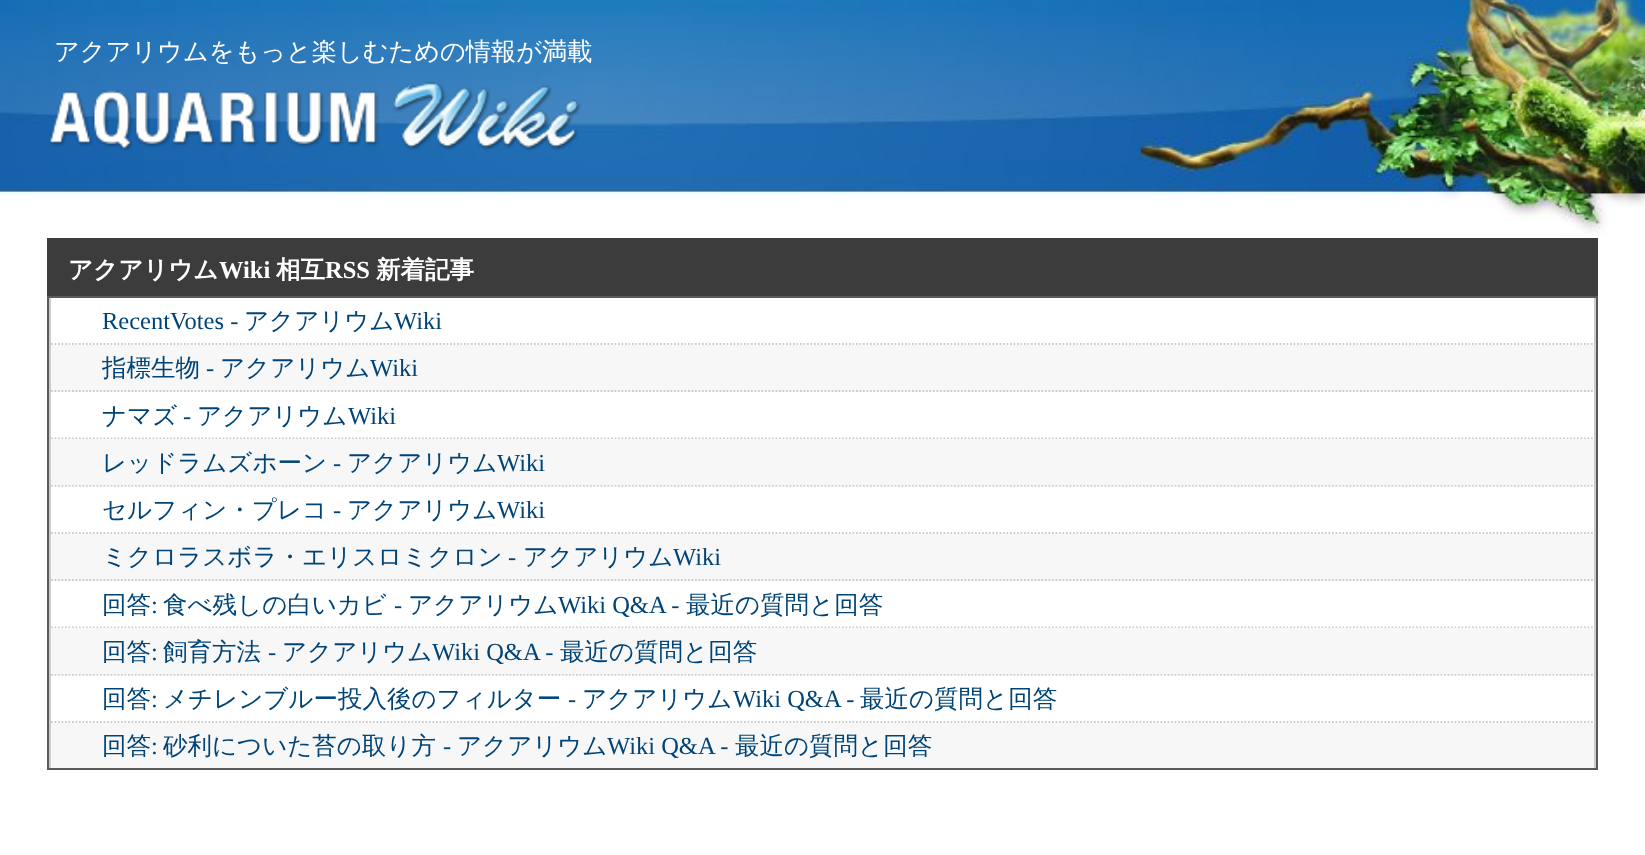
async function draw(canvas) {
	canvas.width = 1645;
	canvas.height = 855;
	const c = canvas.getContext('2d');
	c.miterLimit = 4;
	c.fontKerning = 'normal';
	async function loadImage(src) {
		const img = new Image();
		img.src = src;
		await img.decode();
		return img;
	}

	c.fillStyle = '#fff';
	c.fillRect(0, 0, 1645, 855);
	c.drawImage(await loadImage('img1.png'), 0, 0, 1645, 235);
	c.font = '500 25.2px WenQuanYi Zen Hei';
	c.fillText('アクアリウムをもっと楽しむための情報が満載', 54, 60);
	c.drawImage(await loadImage('img2.png'), 49, 82, 532, 69);
	c.fillStyle = '#3c3c3c';
	c.fillRect(47, 238, 1551, 58);
	c.font = 'bold 24.5px WenQuanYi Zen Hei';
	c.fillStyle = '#fff';
	c.fillText('アクアリウム', 68, 278);
	c.font = 'bold 24.5px Liberation Serif';
	c.fillText('Wiki', 219, 278);
	c.font = 'bold 24.5px WenQuanYi Zen Hei';
	c.fillText('相互', 276, 278);
	c.font = 'bold 24.5px Liberation Serif';
	c.fillText('RSS', 325, 278);
	c.font = 'bold 24.5px WenQuanYi Zen Hei';
	c.fillText('新着記事', 376, 278);
	c.strokeStyle = '#5a5a5a';
	c.lineWidth = 2;
	c.strokeRect(48, 297, 1549, 472);
	c.fillStyle = '#ccc';
	c.fillRect(1594, 298, 2, 470);
	c.fillRect(49, 298, 2, 470);
	c.beginPath();
	c.moveTo(51, 344);
	c.lineTo(1594, 344);
	c.strokeStyle = '#ccc';
	c.lineWidth = 1.8;
	c.setLineDash([1.75, 1.75]);
	c.stroke();
	c.font = '24.5px Liberation Serif';
	c.fillStyle = '#047';
	c.fillText('RecentVotes -', 102, 329);
	c.font = '500 24.5px WenQuanYi Zen Hei';
	c.fillText('アクアリウム', 244, 329);
	c.font = '24.5px Liberation Serif';
	c.fillText('Wiki', 394, 329);
	c.fillStyle = '#f7f7f7';
	c.fillRect(51, 345, 1543, 47);
	c.beginPath();
	c.moveTo(51, 391);
	c.lineTo(1594, 391);
	c.stroke();
	c.font = '500 24.5px WenQuanYi Zen Hei';
	c.fillStyle = '#047';
	c.fillText('指標生物', 102, 376);
	c.font = '24.5px Liberation Serif';
	c.fillText('-', 206, 376);
	c.font = '500 24.5px WenQuanYi Zen Hei';
	c.fillText('アクアリウム', 220, 376);
	c.font = '24.5px Liberation Serif';
	c.fillText('Wiki', 370, 376);
	c.beginPath();
	c.moveTo(51, 438.5);
	c.lineTo(1594, 438.5);
	c.stroke();
	c.font = '500 24.5px WenQuanYi Zen Hei';
	c.fillText('ナマズ', 102, 424);
	c.font = '24.5px Liberation Serif';
	c.fillText('-', 183, 424);
	c.font = '500 24.5px WenQuanYi Zen Hei';
	c.fillText('アクアリウム', 197, 424);
	c.font = '24.5px Liberation Serif';
	c.fillText('Wiki', 348, 424);
	c.fillStyle = '#f7f7f7';
	c.fillRect(51, 485, 1543, 2);
	c.beginPath();
	c.moveTo(51, 485.5);
	c.lineTo(1594, 485.5);
	c.stroke();
	c.fillRect(51, 439, 1543, 46);
	c.font = '500 24.5px WenQuanYi Zen Hei';
	c.fillStyle = '#047';
	c.fillText('レッドラムズホーン', 102, 471);
	c.font = '24.5px Liberation Serif';
	c.fillText('-', 333, 471);
	c.font = '500 24.5px WenQuanYi Zen Hei';
	c.fillText('アクアリウム', 347, 471);
	c.font = '24.5px Liberation Serif';
	c.fillText('Wiki', 497, 471);
	c.beginPath();
	c.moveTo(51, 533);
	c.lineTo(1594, 533);
	c.stroke();
	c.font = '500 24.5px WenQuanYi Zen Hei';
	c.fillText('セルフィン・プレコ', 102, 518);
	c.font = '24.5px Liberation Serif';
	c.fillText('-', 333, 518);
	c.font = '500 24.5px WenQuanYi Zen Hei';
	c.fillText('アクアリウム', 347, 518);
	c.font = '24.5px Liberation Serif';
	c.fillText('Wiki', 497, 518);
	c.fillStyle = '#f7f7f7';
	c.fillRect(51, 534, 1543, 47);
	c.beginPath();
	c.moveTo(51, 580);
	c.lineTo(1594, 580);
	c.stroke();
	c.font = '500 24.5px WenQuanYi Zen Hei';
	c.fillStyle = '#047';
	c.fillText('ミクロラスボラ・エリスロミクロン', 102, 565);
	c.font = '24.5px Liberation Serif';
	c.fillText('-', 508, 565);
	c.font = '500 24.5px WenQuanYi Zen Hei';
	c.fillText('アクアリウム', 523, 565);
	c.font = '24.5px Liberation Serif';
	c.fillText('Wiki', 673, 565);
	c.beginPath();
	c.moveTo(51, 627.5);
	c.lineTo(1594, 627.5);
	c.stroke();
	c.font = '500 24.5px WenQuanYi Zen Hei';
	c.fillText('回答', 102, 613);
	c.font = '24.5px Liberation Serif';
	c.fillText(':', 151, 613);
	c.font = '500 24.5px WenQuanYi Zen Hei';
	c.fillText('食べ残しの白いカビ', 163, 613);
	c.font = '24.5px Liberation Serif';
	c.fillText('-', 394, 613);
	c.font = '500 24.5px WenQuanYi Zen Hei';
	c.fillText('アクアリウム', 408, 613);
	c.font = '24.5px Liberation Serif';
	c.fillText('Wiki Q&A -', 558, 613);
	c.font = '500 24.5px WenQuanYi Zen Hei';
	c.fillText('最近の質問と回答', 686, 613);
	c.fillStyle = '#f7f7f7';
	c.fillRect(51, 674, 1543, 2);
	c.beginPath();
	c.moveTo(51, 674.5);
	c.lineTo(1594, 674.5);
	c.stroke();
	c.fillRect(51, 628, 1543, 46);
	c.fillStyle = '#047';
	c.fillText('回答', 102, 660);
	c.font = '24.5px Liberation Serif';
	c.fillText(':', 151, 660);
	c.font = '500 24.5px WenQuanYi Zen Hei';
	c.fillText('飼育方法', 163, 660);
	c.font = '24.5px Liberation Serif';
	c.fillText('-', 268, 660);
	c.font = '500 24.5px WenQuanYi Zen Hei';
	c.fillText('アクアリウム', 282, 660);
	c.font = '24.5px Liberation Serif';
	c.fillText('Wiki Q&A -', 432, 660);
	c.font = '500 24.5px WenQuanYi Zen Hei';
	c.fillText('最近の質問と回答', 560, 660);
	c.beginPath();
	c.moveTo(51, 722);
	c.lineTo(1594, 722);
	c.stroke();
	c.fillText('回答', 102, 707);
	c.font = '24.5px Liberation Serif';
	c.fillText(':', 151, 707);
	c.font = '500 24.5px WenQuanYi Zen Hei';
	c.fillText('メチレンブルー投入後のフィルター', 163, 707);
	c.font = '24.5px Liberation Serif';
	c.fillText('-', 568, 707);
	c.font = '500 24.5px WenQuanYi Zen Hei';
	c.fillText('アクアリウム', 582, 707);
	c.font = '24.5px Liberation Serif';
	c.fillText('Wiki Q&A -', 733, 707);
	c.font = '500 24.5px WenQuanYi Zen Hei';
	c.fillText('最近の質問と回答', 860, 707);
	c.fillStyle = '#f7f7f7';
	c.fillRect(51, 723, 1543, 45);
	c.fillStyle = '#047';
	c.fillText('回答', 102, 754);
	c.font = '24.5px Liberation Serif';
	c.fillText(':', 151, 754);
	c.font = '500 24.5px WenQuanYi Zen Hei';
	c.fillText('砂利についた苔の取り方', 163, 754);
	c.font = '24.5px Liberation Serif';
	c.fillText('-', 443, 754);
	c.font = '500 24.5px WenQuanYi Zen Hei';
	c.fillText('アクアリウム', 457, 754);
	c.font = '24.5px Liberation Serif';
	c.fillText('Wiki Q&A -', 607, 754);
	c.font = '500 24.5px WenQuanYi Zen Hei';
	c.fillText('最近の質問と回答', 735, 754);
}

draw(document.querySelector('canvas'));
